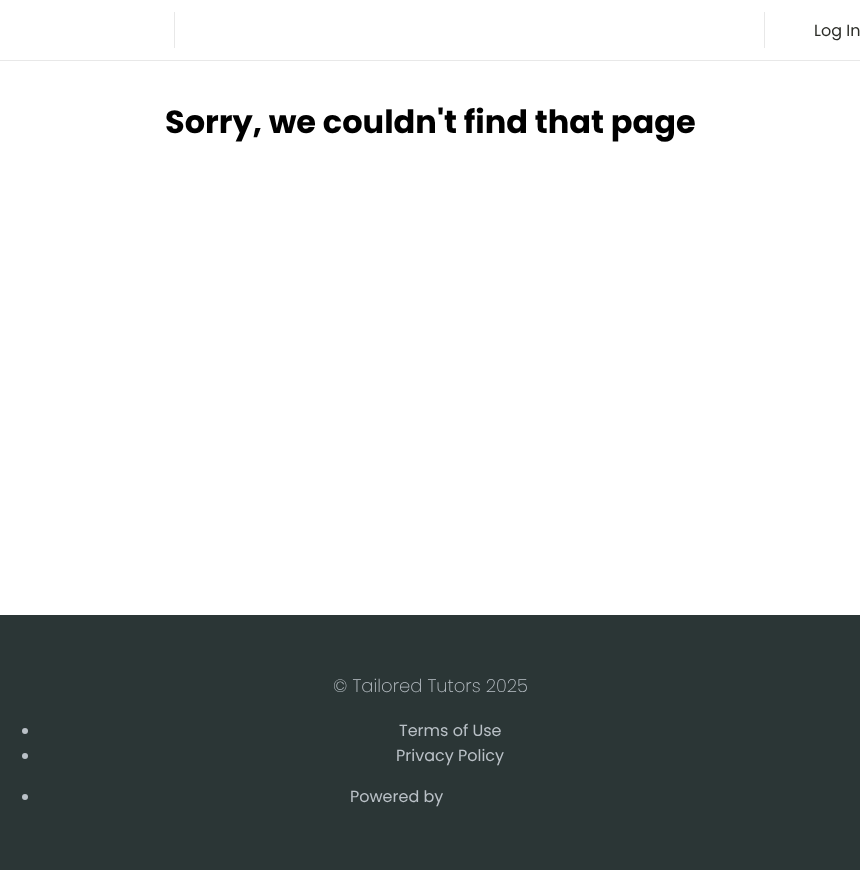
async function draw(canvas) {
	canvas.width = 860;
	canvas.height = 870;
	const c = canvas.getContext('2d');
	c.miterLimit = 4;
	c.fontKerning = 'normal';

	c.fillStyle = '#fff';
	c.fillRect(0, 0, 860, 870);
	for (const [x, y, w, h, color] of [
		[0, 60, 860, 1, '#e8e8e8'],
		[174, 12, 1, 36, '#e8e8e8'],
		[764, 12, 1, 36, '#e8e8e8'],
	]) {
		c.fillStyle = color;
		c.fillRect(x, y, w, h);
	}
	c.font = '16px Poppins';
	c.fillStyle = '#2c2d28';
	c.fillText('Log In', 814, 36);
	c.font = 'bold 32px Poppins';
	c.fillStyle = '#000';
	c.fillText('Sorry, we couldn\'t find that page', 165, 133);
	c.fillStyle = '#2b3636';
	c.fillRect(0, 615, 860, 255);
	c.font = '200 18px Poppins';
	c.fillStyle = '#bac1c7';
	c.fillText('© Tailored Tutors 2025', 333, 692);
	c.beginPath();
	c.arc(25, 731, 3, 0, 2 * Math.PI);
	c.fill();
	c.font = '16px Poppins';
	c.fillText('Terms of Use', 399, 736);
	c.beginPath();
	c.arc(25, 756, 3, 0, 2 * Math.PI);
	c.fill();
	c.fillText('Privacy Policy', 396, 761);
	c.beginPath();
	c.arc(25, 797, 3, 0, 2 * Math.PI);
	c.fill();
	c.fillText('Powered by', 350, 802);
}

draw(document.querySelector('canvas'));
